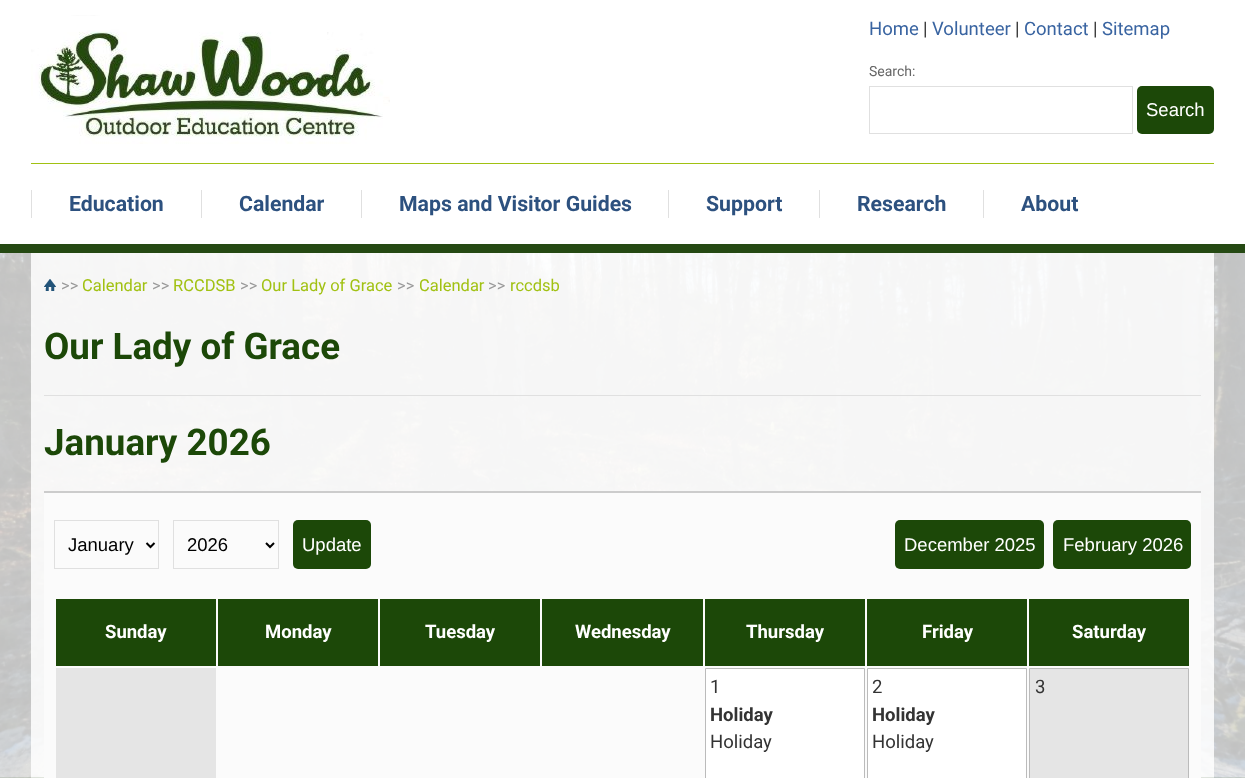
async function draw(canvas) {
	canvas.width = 1245;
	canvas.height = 778;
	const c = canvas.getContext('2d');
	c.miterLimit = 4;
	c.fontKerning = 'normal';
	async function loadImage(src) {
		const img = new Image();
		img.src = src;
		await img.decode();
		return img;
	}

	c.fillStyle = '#254913';
	c.fillRect(0, 0, 1245, 778);
	c.fillStyle = '#fff';
	c.fillRect(0, 0, 1245, 244);
	c.drawImage(await loadImage('img1.png'), 31, 15, 359, 129);
	c.font = '18.5px Roboto';
	c.fillStyle = '#3964a1';
	c.fillText('Home', 869, 35);
	c.fillStyle = '#333';
	c.fillText('|', 923, 35);
	c.fillStyle = '#3964a1';
	c.fillText('Volunteer', 932, 35);
	c.fillStyle = '#333';
	c.fillText('|', 1015, 35);
	c.fillStyle = '#3964a1';
	c.fillText('Contact', 1024, 35);
	c.fillStyle = '#333';
	c.fillText('|', 1093, 35);
	c.fillStyle = '#3964a1';
	c.fillText('Sitemap', 1102, 35);
	c.font = '14px Roboto';
	c.fillStyle = '#666';
	c.fillText('Search:', 869, 76);
	c.strokeStyle = '#e0e0e0';
	c.strokeRect(869.5, 86.5, 263, 47);
	c.fillStyle = '#1c4808';
	c.beginPath();
	c.roundRect(1137, 86, 77, 48, 5);
	c.fill();
	c.font = '18.5px Liberation Sans';
	c.fillStyle = '#fff';
	c.fillText('Search', 1146, 116);
	c.fillStyle = '#a1c112';
	c.fillRect(31, 163, 1183, 1);
	c.fillStyle = '#e0e0e0';
	c.fillRect(31, 190, 1, 28);
	c.font = 'bold 21.25px Roboto';
	c.fillStyle = '#2d517f';
	c.fillText('Education', 69, 211);
	c.fillStyle = '#e0e0e0';
	c.fillRect(201, 190, 1, 28);
	c.fillStyle = '#2d517f';
	c.fillText('Calendar', 239, 211);
	c.fillStyle = '#e0e0e0';
	c.fillRect(361, 190, 1, 28);
	c.fillStyle = '#2d517f';
	c.fillText('Maps and Visitor Guides', 399, 211);
	c.fillStyle = '#e0e0e0';
	c.fillRect(668, 190, 1, 28);
	c.fillStyle = '#2d517f';
	c.fillText('Support', 706, 211);
	c.fillStyle = '#e0e0e0';
	c.fillRect(819, 190, 1, 28);
	c.fillStyle = '#2d517f';
	c.fillText('Research', 857, 211);
	c.fillStyle = '#e0e0e0';
	c.fillRect(983, 190, 1, 28);
	c.fillStyle = '#2d517f';
	c.fillText('About', 1021, 211);
	c.drawImage(await loadImage('img2.png'), 0, 253, 1245, 525);
	c.drawImage(await loadImage('img3.png'), 44, 279, 12, 12);
	c.font = '16.5px Roboto';
	c.fillStyle = '#999';
	c.fillText('>>', 61, 291);
	c.fillStyle = '#a1c112';
	c.fillText('Calendar', 82, 291);
	c.fillStyle = '#999';
	c.fillText('>>', 152, 291);
	c.fillStyle = '#a1c112';
	c.fillText('RCCDSB', 173, 291);
	c.fillStyle = '#999';
	c.fillText('>>', 240, 291);
	c.fillStyle = '#a1c112';
	c.fillText('Our Lady of Grace', 261, 291);
	c.fillStyle = '#999';
	c.fillText('>>', 397, 291);
	c.fillStyle = '#a1c112';
	c.fillText('Calendar', 419, 291);
	c.fillStyle = '#999';
	c.fillText('>>', 488, 291);
	c.fillStyle = '#a1c112';
	c.fillText('rccdsb', 510, 291);
	c.font = 'bold 36.75px Roboto';
	c.fillStyle = '#1c4808';
	c.fillText('Our Lady of Grace', 44, 359);
	c.fillStyle = '#e0e0e0';
	c.fillRect(44, 395, 1157, 1);
	c.fillStyle = '#1c4808';
	c.fillText('January 2026', 44, 455);
	c.fillStyle = '#fbfbfb';
	c.fillRect(44, 493, 1157, 285);
	c.fillStyle = '#ccc';
	c.fillRect(44, 491, 1157, 2);
	c.strokeRect(54.5, 520.5, 104, 48);
	c.beginPath();
	c.moveTo(146.5, 543);
	c.lineTo(150.5, 547);
	c.lineTo(154.5, 543);
	c.strokeStyle = '#000';
	c.lineWidth = 2;
	c.stroke();
	c.font = '18.5px Liberation Sans';
	c.fillStyle = '#000';
	c.fillText('January', 68, 551);
	c.strokeStyle = '#e0e0e0';
	c.lineWidth = 1;
	c.strokeRect(173.5, 520.5, 105, 48);
	c.beginPath();
	c.moveTo(266, 543);
	c.lineTo(270, 547);
	c.lineTo(274, 543);
	c.strokeStyle = '#000';
	c.lineWidth = 2;
	c.stroke();
	c.fillText('2026', 187, 551);
	c.fillStyle = '#1c4808';
	c.beginPath();
	c.roundRect(293, 520, 78, 49, 5);
	c.fill();
	c.fillStyle = '#fff';
	c.fillText('Update', 302, 551);
	c.fillStyle = '#1c4808';
	c.beginPath();
	c.roundRect(895, 520, 149, 49, 5);
	c.fill();
	c.fillStyle = '#fff';
	c.fillText('December 2025', 904, 551);
	c.fillStyle = '#1c4808';
	c.beginPath();
	c.roundRect(1053, 520, 138, 49, 5);
	c.fill();
	c.fillStyle = '#fff';
	c.fillText('February 2026', 1063, 551);
	c.fillStyle = '#1c4808';
	c.fillRect(56, 599, 160, 67);
	c.font = 'bold 18.5px Roboto';
	c.fillStyle = '#fff';
	c.fillText('Sunday', 105, 638);
	c.fillStyle = '#1c4808';
	c.fillRect(218, 599, 160, 67);
	c.fillStyle = '#fff';
	c.fillText('Monday', 265, 638);
	c.fillStyle = '#1c4808';
	c.fillRect(380, 599, 160, 67);
	c.fillStyle = '#fff';
	c.fillText('Tuesday', 425, 638);
	c.fillStyle = '#1c4808';
	c.fillRect(542, 599, 161, 67);
	c.fillStyle = '#fff';
	c.fillText('Wednesday', 575, 638);
	c.fillStyle = '#1c4808';
	c.fillRect(705, 599, 160, 67);
	c.fillStyle = '#fff';
	c.fillText('Thursday', 746, 638);
	c.fillStyle = '#1c4808';
	c.fillRect(867, 599, 160, 67);
	c.fillStyle = '#fff';
	c.fillText('Friday', 922, 638);
	c.fillStyle = '#1c4808';
	c.fillRect(1029, 599, 160, 67);
	c.fillStyle = '#fff';
	c.fillText('Saturday', 1072, 638);
	c.fillStyle = '#e5e5e5';
	c.fillRect(56, 668, 160, 110);
	c.fillStyle = '#fff';
	c.beginPath();
	c.rect(705.5, 668.5, 159, 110);
	c.fill();
	c.strokeStyle = '#bbb';
	c.lineWidth = 1;
	c.stroke();
	c.font = '18.5px Roboto';
	c.fillStyle = '#333';
	c.fillText('1', 710, 693);
	c.font = 'bold 18.5px Roboto';
	c.fillText('Holiday', 710, 721);
	c.font = '18.5px Roboto';
	c.fillText('Holiday', 710, 748);
	c.fillStyle = '#fff';
	c.beginPath();
	c.rect(867.5, 668.5, 159, 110);
	c.fill();
	c.stroke();
	c.fillStyle = '#333';
	c.fillText('2', 872, 693);
	c.font = 'bold 18.5px Roboto';
	c.fillText('Holiday', 872, 721);
	c.font = '18.5px Roboto';
	c.fillText('Holiday', 872, 748);
	c.fillStyle = '#e5e5e5';
	c.beginPath();
	c.rect(1029.5, 668.5, 159, 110);
	c.fill();
	c.stroke();
	c.fillStyle = '#333';
	c.fillText('3', 1035, 693);
}

draw(document.querySelector('canvas'));
